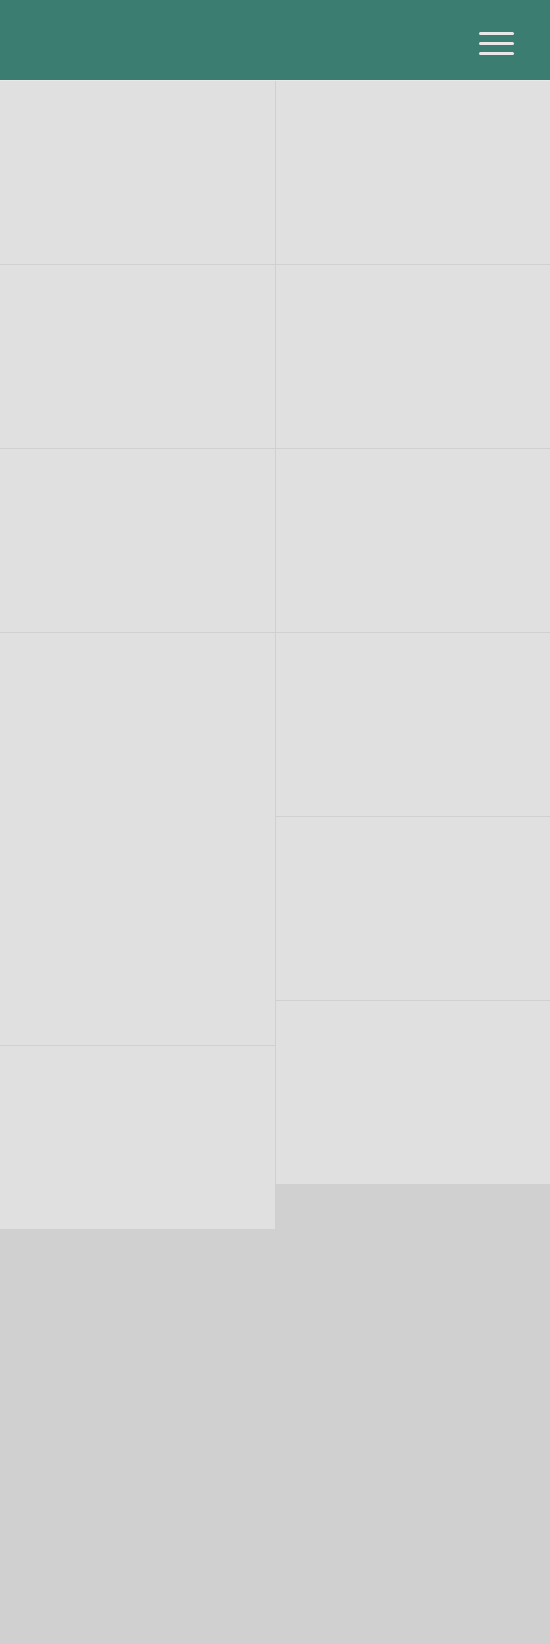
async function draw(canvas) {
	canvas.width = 550;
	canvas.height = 1644;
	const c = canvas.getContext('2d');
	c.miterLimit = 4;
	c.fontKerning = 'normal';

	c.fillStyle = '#3b7d70';
	c.fillRect(0, 0, 550, 1644);
	c.fillStyle = '#e8e8e8';
	c.fillRect(0, 80, 550, 1);
	c.beginPath();
	c.roundRect(479, 42, 35, 3, 1.5);
	c.fill();
	c.beginPath();
	c.roundRect(479, 32, 35, 3, 1.5);
	c.fill();
	c.beginPath();
	c.roundRect(479, 52, 35, 3, 1.5);
	c.fill();
	for (const [x, y, w, h, color] of [
		[0, 81, 550, 1563, '#d0d0d0'],
		[0, 81, 275, 183, '#e0e0e0'],
		[276, 81, 274, 183, '#e0e0e0'],
		[0, 265, 275, 183, '#e0e0e0'],
		[276, 265, 274, 183, '#e0e0e0'],
		[0, 449, 275, 183, '#e0e0e0'],
		[276, 449, 274, 183, '#e0e0e0'],
		[0, 633, 275, 412, '#e0e0e0'],
		[276, 633, 274, 183, '#e0e0e0'],
		[276, 817, 274, 183, '#e0e0e0'],
		[0, 1046, 275, 183, '#e0e0e0'],
		[276, 1001, 274, 183, '#e0e0e0'],
	]) {
		c.fillStyle = color;
		c.fillRect(x, y, w, h);
	}
}

draw(document.querySelector('canvas'));
